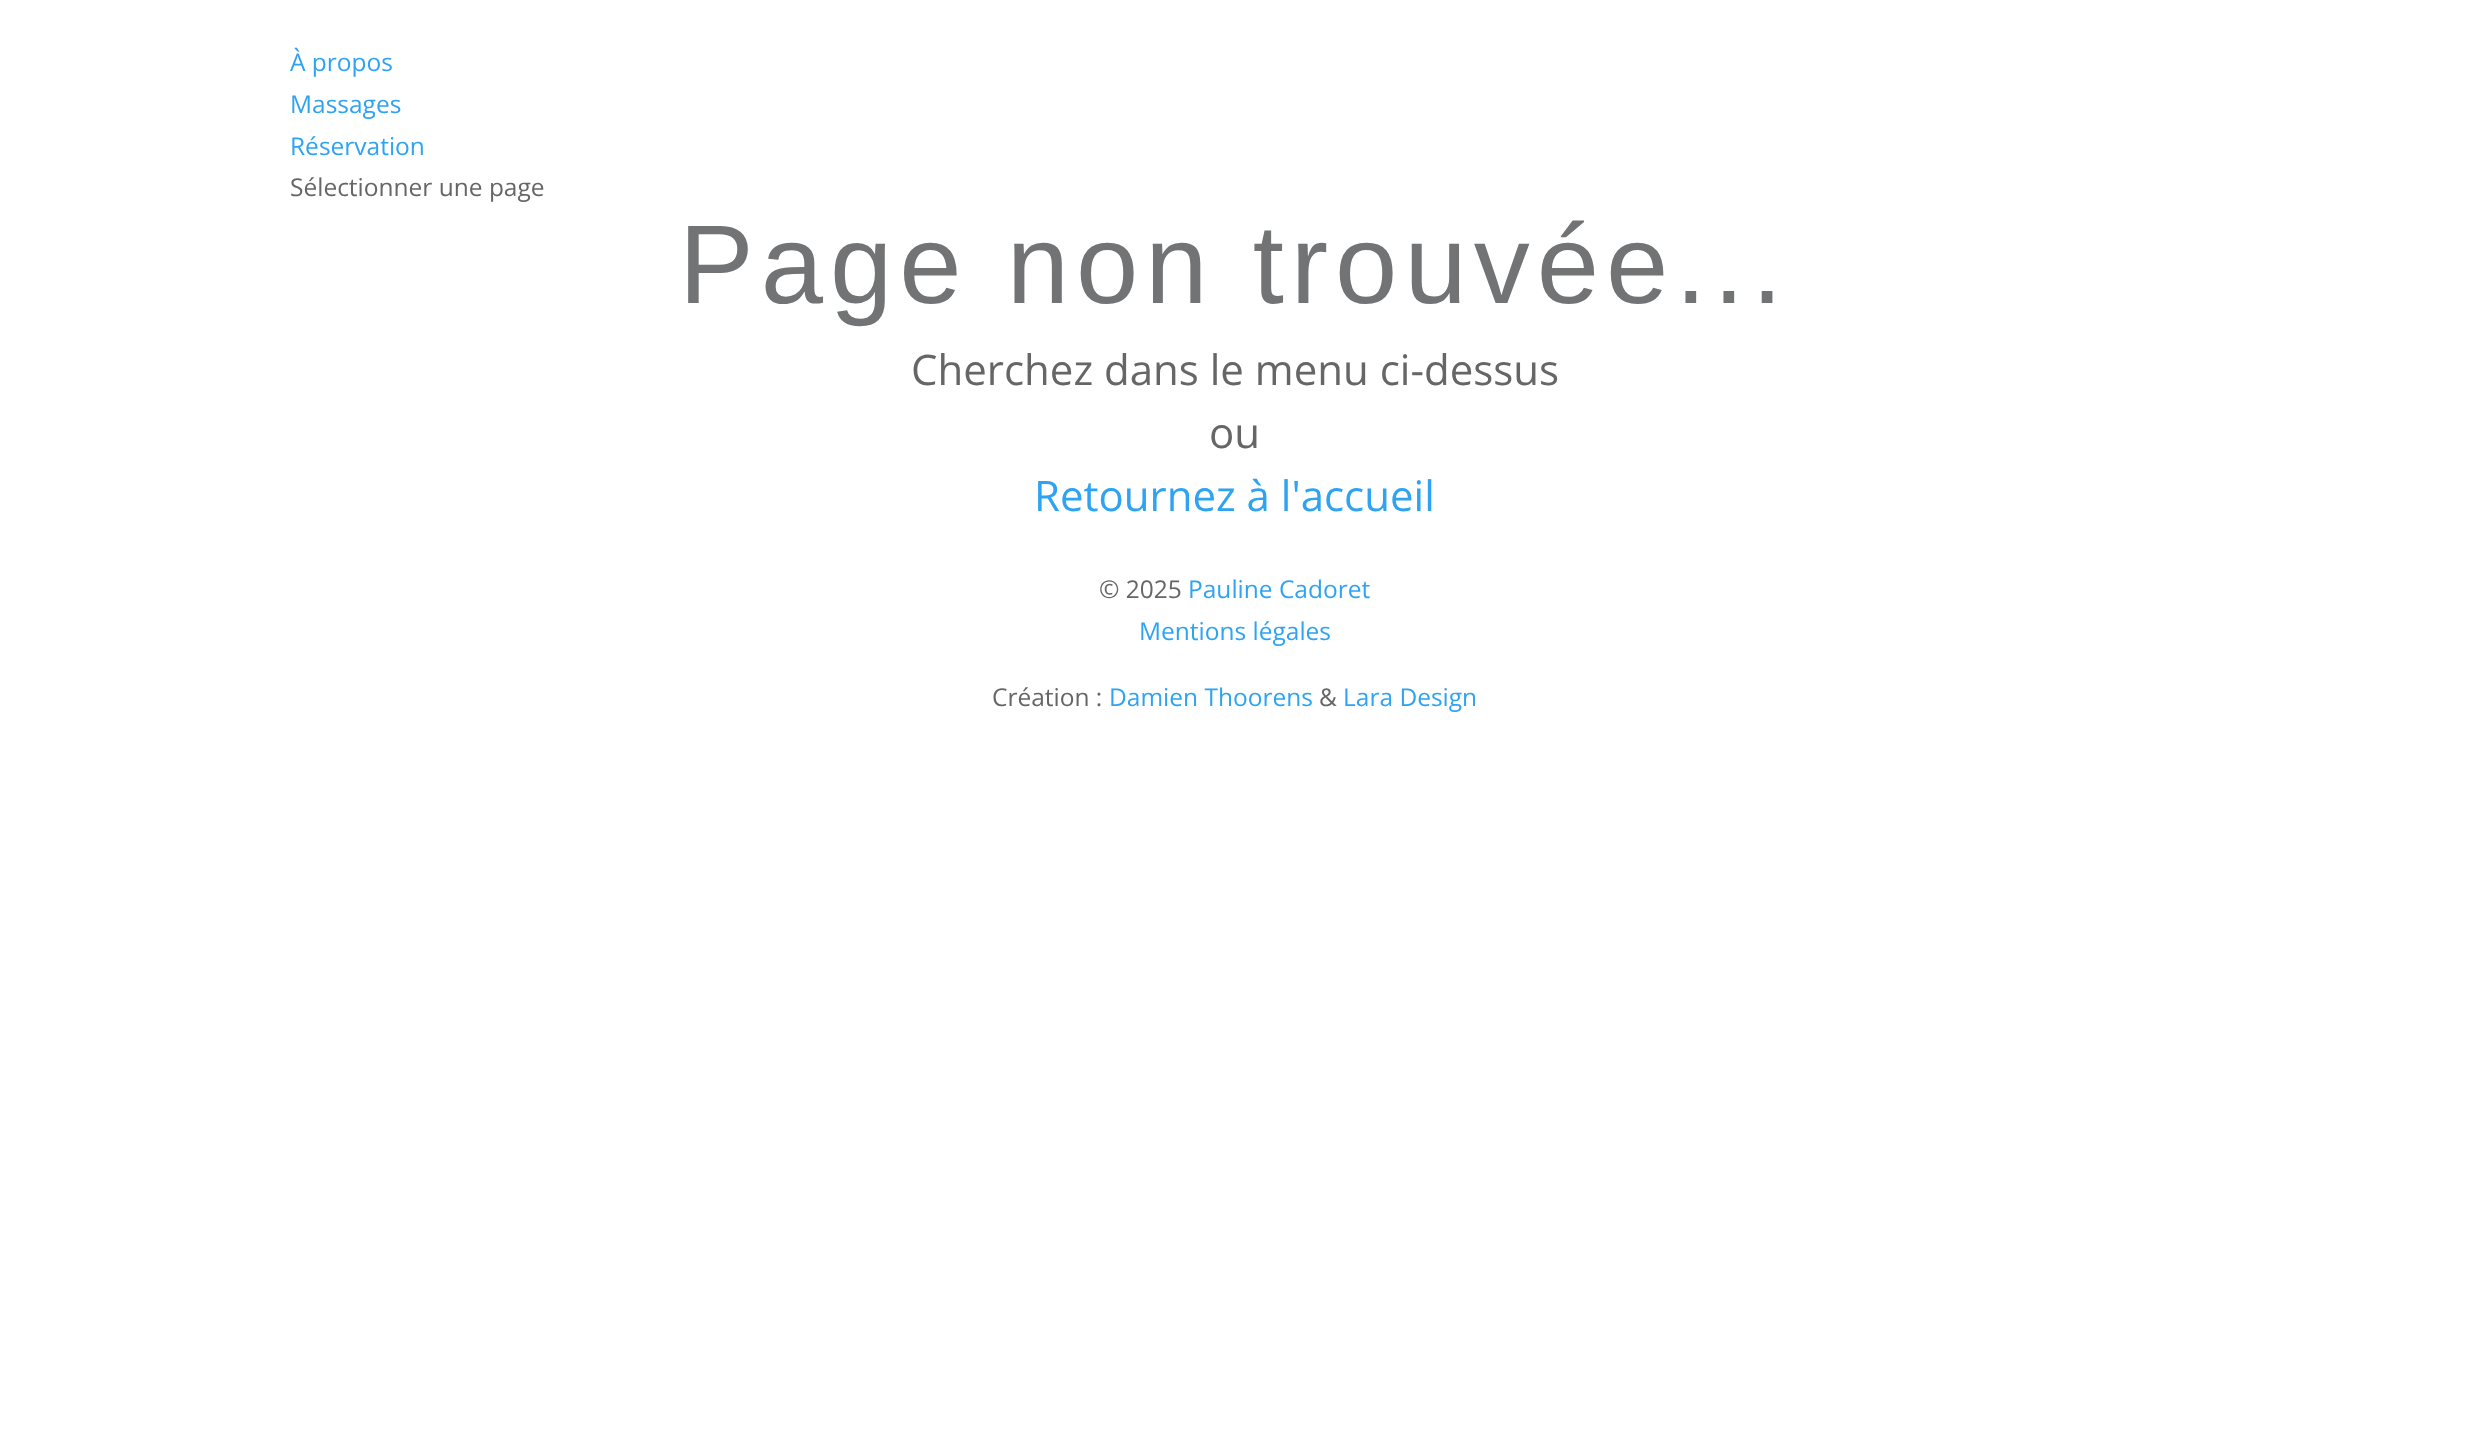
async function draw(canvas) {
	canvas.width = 2469;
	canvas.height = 1456;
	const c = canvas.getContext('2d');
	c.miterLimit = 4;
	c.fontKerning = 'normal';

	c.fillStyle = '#fff';
	c.fillRect(0, 0, 2469, 1456);
	c.font = '24.5px Open Sans';
	c.fillStyle = '#2ea3f2';
	for (const [text, x, y] of [
		['À propos', 290, 71],
		['Massages', 290, 113],
		['Réservation', 290, 155],
	]) {
		c.fillText(text, x, y);
	}
	c.fillStyle = '#666';
	c.fillText('Sélectionner une page', 290, 196);
	c.letterSpacing = '7px';
	c.font = '112px Liberation Sans';
	c.fillStyle = '#727374';
	c.fillText('Page non trouvée...', 679, 303);
	c.letterSpacing = '0px';
	c.font = '42px Open Sans';
	c.fillStyle = '#666';
	c.fillText('Cherchez dans le menu ci-dessus', 911, 385);
	c.fillText('ou', 1209, 448);
	c.fillStyle = '#2ea3f2';
	c.fillText('Retournez à l\'accueil', 1034, 511);
	c.font = '24.5px Open Sans';
	c.fillStyle = '#666';
	c.fillText('© 2025', 1099, 598);
	c.fillStyle = '#2ea3f2';
	c.fillText('Pauline Cadoret', 1188, 598);
	c.fillText('Mentions légales', 1139, 640);
	c.fillStyle = '#666';
	c.fillText('Création :', 992, 706);
	c.fillStyle = '#2ea3f2';
	c.fillText('Damien Thoorens', 1109, 706);
	c.fillStyle = '#666';
	c.fillText('&', 1319, 706);
	c.fillStyle = '#2ea3f2';
	c.fillText('Lara Design', 1343, 706);
}

draw(document.querySelector('canvas'));
